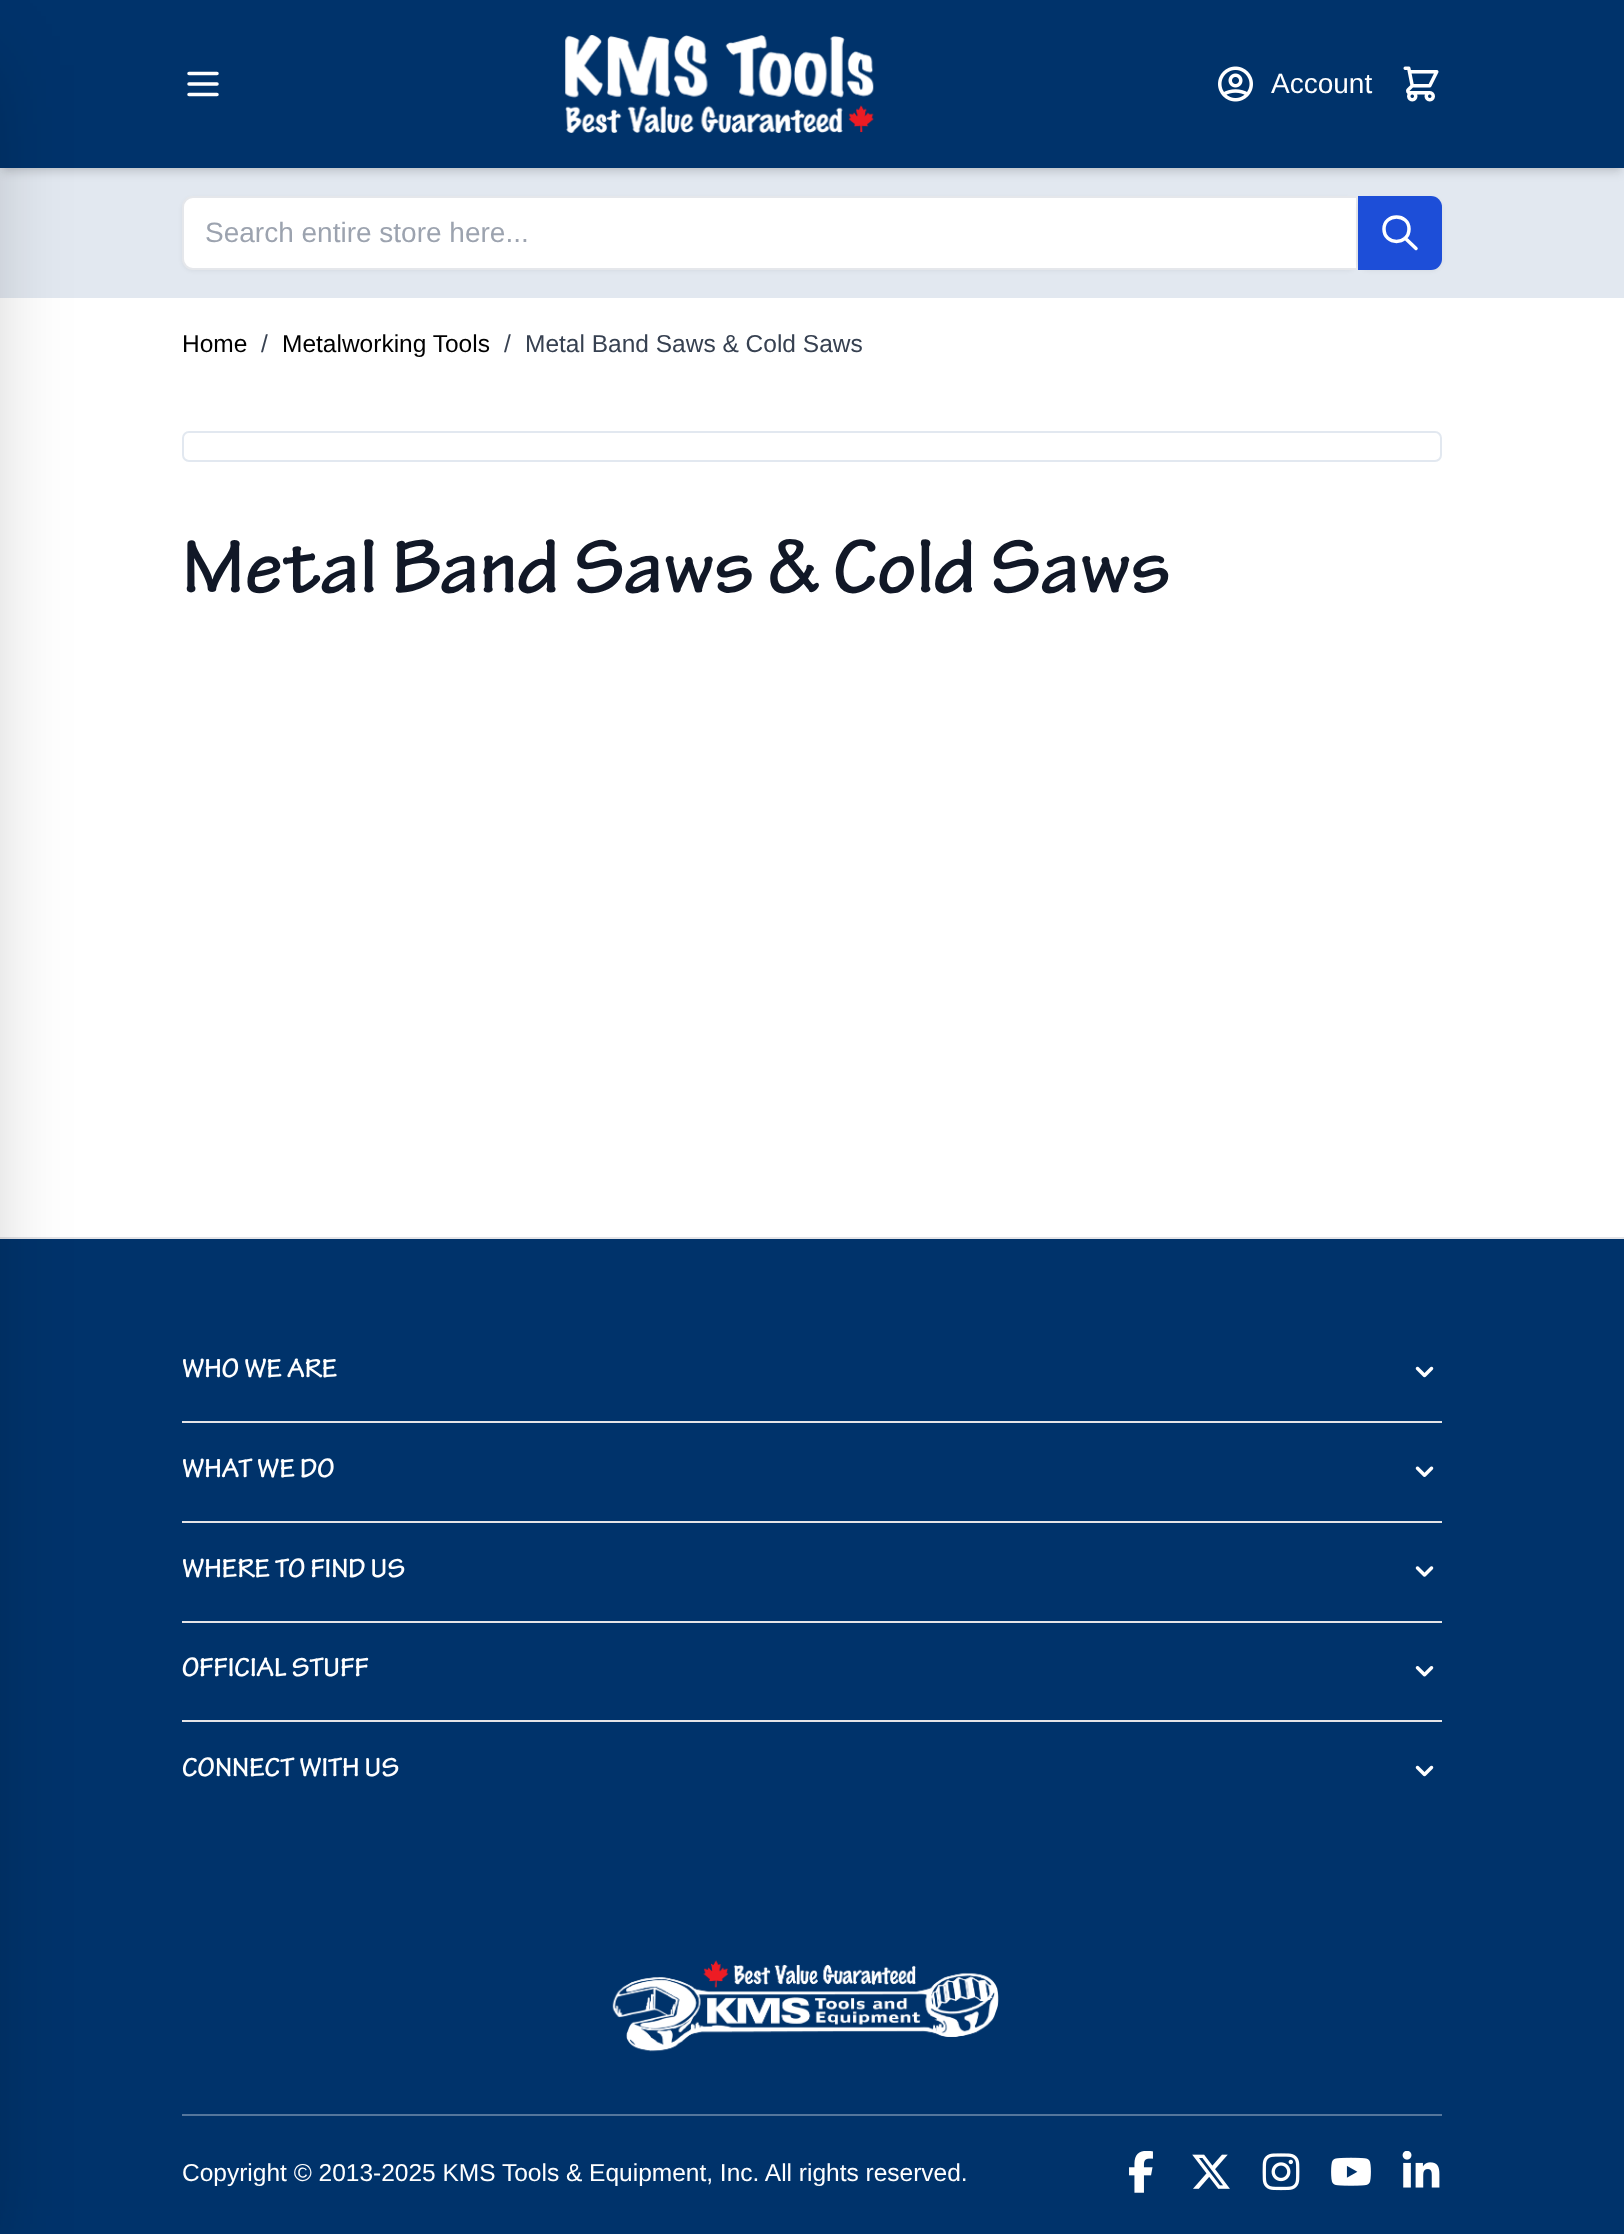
async function draw(canvas) {
	canvas.width = 1624;
	canvas.height = 2234;
	const c = canvas.getContext('2d');
	c.miterLimit = 4;
	c.fontKerning = 'normal';
	async function loadImage(src) {
		const img = new Image();
		img.src = src;
		await img.decode();
		return img;
	}

	c.fillStyle = '#fff';
	c.fillRect(0, 0, 1624, 2234);
	c.fillStyle = '#e2e8f0';
	c.fillRect(0, 168, 1624, 130);
	c.fillStyle = '#0000001a';
	c.filter = 'blur(3.5px)';
	c.beginPath();
	c.rect(4, 7, 1617, 161);
	c.fill();
	c.filter = 'none';
	c.filter = 'blur(5px)';
	c.beginPath();
	c.rect(2, 9, 1620, 164);
	c.fill();
	c.filter = 'none';
	for (const [x, y, w, h, color] of [
		[0, 0, 1624, 168, '#00336b'],
		[0, 1239, 1624, 995, '#00336b'],
		[0, 1237, 1624, 2, '#e4e4e7'],
	]) {
		c.fillStyle = color;
		c.fillRect(x, y, w, h);
	}
	c.fillStyle = '#00000040';
	c.filter = 'blur(44px)';
	c.beginPath();
	c.rect(-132, 65, 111, 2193);
	c.fill();
	c.filter = 'none';
	c.beginPath();
	c.moveTo(189, 73.5);
	c.lineTo(217, 73.5);
	c.moveTo(189, 84);
	c.lineTo(217, 84);
	c.moveTo(189, 94.5);
	c.lineTo(217, 94.5);
	c.strokeStyle = '#fff';
	c.lineWidth = 3.5;
	c.lineCap = 'round';
	c.lineJoin = 'round';
	c.stroke();
	c.drawImage(await loadImage('img1.png'), 565, 35, 309, 98);
	c.drawImage(await loadImage('img2.png'), 1218, 66, 35, 36);
	c.font = '28px Liberation Sans';
	c.fillStyle = '#fff';
	c.fillText('Account', 1271, 93);
	c.drawImage(await loadImage('img3.png'), 1403, 66, 36, 36);
	c.fillStyle = '#0000000d';
	c.filter = 'blur(2px)';
	c.beginPath();
	c.roundRect(182, 198, 1176, 73, 11);
	c.fill();
	c.filter = 'none';
	c.fillStyle = '#fff';
	c.beginPath();
	c.roundRect(183, 197, 1174, 72, [10, 0, 0, 10]);
	c.fill();
	c.strokeStyle = '#e5e7eb';
	c.lineWidth = 2;
	c.lineJoin = 'miter';
	c.stroke();
	c.fillStyle = '#9ca3af';
	c.fillText('Search entire store here...', 205, 242);
	c.fillStyle = '#0000000d';
	c.filter = 'blur(2px)';
	c.beginPath();
	c.roundRect(1358, 198, 84, 73, 11);
	c.fill();
	c.filter = 'none';
	c.fillStyle = '#1d4ed8';
	c.beginPath();
	c.roundRect(1358, 196, 84, 74, [0, 11, 11, 0]);
	c.fill();
	c.beginPath();
	c.moveTo(1416, 248.5);
	c.lineTo(1405, 238);
	c.moveTo(1409, 229);
	c.bezierCurveTo(1409, 245.5, 1384, 245.5, 1384, 229);
	c.bezierCurveTo(1384, 213, 1409, 213, 1409, 229);
	c.closePath();
	c.strokeStyle = '#fff';
	c.lineWidth = 3.5;
	c.lineJoin = 'round';
	c.stroke();
	c.font = '24.5px Liberation Sans';
	c.fillStyle = '#000';
	c.fillText('Home', 182, 352);
	c.fillStyle = '#374151';
	c.fillText('/', 261, 352);
	c.fillStyle = '#000';
	c.fillText('Metalworking Tools', 282, 352);
	c.fillStyle = '#374151';
	c.fillText('/', 504, 352);
	c.fillText('Metal Band Saws & Cold Saws', 525, 352);
	c.beginPath();
	c.roundRect(183, 432, 1258, 29, 6);
	c.strokeStyle = '#e2e8f0';
	c.lineWidth = 2;
	c.lineJoin = 'miter';
	c.stroke();
	c.font = 'bold 80.5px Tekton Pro';
	c.fillStyle = '#111827';
	c.fillText('Metal Band Saws & Cold Saws', 182, 592);
	c.fillStyle = '#e4e4e7';
	c.fillRect(182, 1421, 1260, 2);
	c.font = 'bold 28px Tekton Pro';
	c.fillStyle = '#fff';
	c.fillText('WHO WE ARE', 182, 1377);
	c.drawImage(await loadImage('img4.png'), 1415, 1366, 19, 12);
	c.fillStyle = '#e4e4e7';
	c.fillRect(182, 1521, 1260, 2);
	c.fillStyle = '#fff';
	c.fillText('WHAT WE DO', 182, 1477);
	c.drawImage(await loadImage('img5.png'), 1415, 1466, 19, 11);
	c.fillStyle = '#e4e4e7';
	c.fillRect(182, 1621, 1260, 2);
	c.fillStyle = '#fff';
	c.fillText('WHERE TO FIND US', 182, 1577);
	c.drawImage(await loadImage('img6.png'), 1415, 1566, 19, 11);
	c.fillStyle = '#e4e4e7';
	c.fillRect(182, 1720, 1260, 2);
	c.fillStyle = '#fff';
	c.fillText('OFFICIAL STUFF', 182, 1676);
	c.drawImage(await loadImage('img7.png'), 1415, 1666, 19, 11);
	c.fillText('CONNECT WITH US', 182, 1776);
	c.drawImage(await loadImage('img4.png'), 1415, 1765, 19, 12);
	c.drawImage(await loadImage('img8.png'), 612, 1960, 387, 92);
	c.fillStyle = '#54769c';
	c.fillRect(182, 2114, 1260, 2);
	c.font = '24.5px Liberation Sans';
	c.fillStyle = '#fff';
	c.fillText('Copyright © 2013-2025 KMS Tools & Equipment, Inc. All rights reserved.', 182, 2181);
	c.drawImage(await loadImage('img9.png'), 1129, 2151, 24, 42);
	c.drawImage(await loadImage('img10.png'), 1192, 2154, 38, 35);
	c.drawImage(await loadImage('img11.png'), 1262, 2153, 38, 38);
	c.drawImage(await loadImage('img12.png'), 1331, 2157, 40, 29);
	c.drawImage(await loadImage('img13.png'), 1402, 2151, 38, 37);
}

draw(document.querySelector('canvas'));
